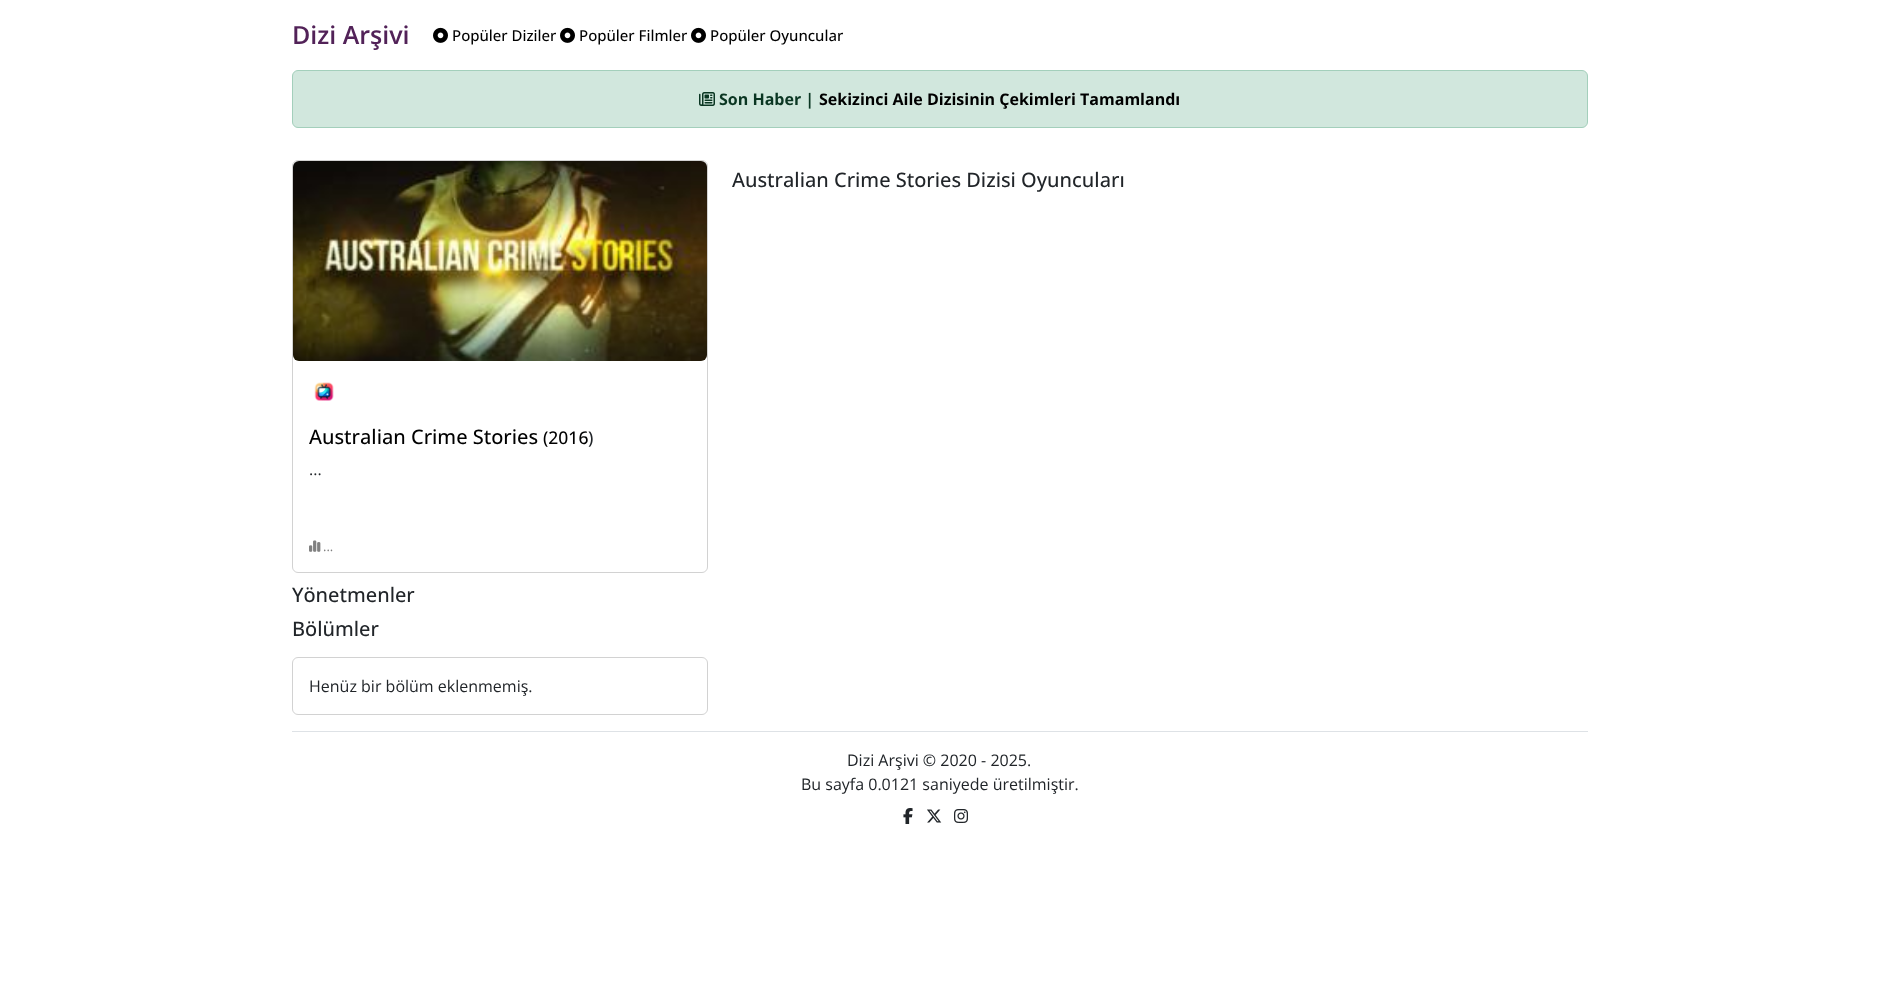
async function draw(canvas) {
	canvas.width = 1879;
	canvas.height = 982;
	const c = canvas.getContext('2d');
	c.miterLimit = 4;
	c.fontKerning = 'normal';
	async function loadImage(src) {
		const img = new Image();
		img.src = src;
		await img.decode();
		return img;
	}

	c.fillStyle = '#fff';
	c.fillRect(0, 0, 1879, 982);
	c.font = '600 25px Open Sans';
	c.fillStyle = '#522258';
	c.fillText('Dizi Arşivi', 292, 44);
	c.drawImage(await loadImage('img1.png'), 433, 27, 15, 16);
	c.font = '500 15px Open Sans';
	c.fillStyle = '#000';
	c.fillText('Popüler Diziler', 452, 41);
	c.drawImage(await loadImage('img1.png'), 560, 27, 15, 16);
	c.fillText('Popüler Filmler', 579, 41);
	c.drawImage(await loadImage('img1.png'), 691, 27, 15, 16);
	c.fillText('Popüler Oyuncular', 710, 41);
	c.fillStyle = '#d1e7dd';
	c.beginPath();
	c.roundRect(292.5, 70.5, 1295, 57, 5.5);
	c.fill();
	c.strokeStyle = '#a3cfbb';
	c.stroke();
	c.drawImage(await loadImage('img2.png'), 699, 92, 16, 14);
	c.font = 'bold 16px Open Sans';
	c.fillStyle = '#0a3622';
	c.fillText('Son Haber |', 719, 105);
	c.fillStyle = '#000';
	c.fillText('Sekizinci Aile Dizisinin Çekimleri Tamamlandı', 819, 105);
	c.font = '500 20px Open Sans';
	c.fillStyle = '#212529';
	c.fillText('Australian Crime Stories Dizisi Oyuncuları', 732, 187);
	c.beginPath();
	c.roundRect(292.5, 160.5, 415, 412, 5.5);
	c.strokeStyle = '#d2d2d2';
	c.stroke();
	c.drawImage(await loadImage('img3.png'), 293, 161, 414, 200);
	c.drawImage(await loadImage('img4.png'), 314, 382, 20, 19);
	c.fillStyle = '#000';
	c.fillText('Australian Crime Stories', 309, 444);
	c.font = '500 17.5px Open Sans';
	c.fillText('(2016', 543, 444);
	c.fillStyle = '#212529';
	c.fillText(')', 588, 444);
	c.font = '16px Open Sans';
	c.fillText('...', 309, 475);
	c.drawImage(await loadImage('img5.png'), 309, 540, 12, 12);
	c.font = '13px Open Sans';
	c.fillStyle = '#808080';
	c.fillText('...', 323, 551);
	c.font = '500 20px Open Sans';
	c.fillStyle = '#212529';
	c.fillText('Yönetmenler', 292, 602);
	c.fillText('Bölümler', 292, 636);
	c.beginPath();
	c.roundRect(292.5, 657.5, 415, 57, 5.5);
	c.stroke();
	c.font = '16px Open Sans';
	c.fillText('Henüz bir bölüm eklenmemiş.', 309, 692);
	c.fillStyle = '#dee2e6';
	c.fillRect(292, 731, 1296, 1);
	c.fillStyle = '#212529';
	c.fillText('Dizi Arşivi © 2020 - 2025.', 847, 766);
	c.fillText('Bu sayfa 0.0121 saniyede üretilmiştir.', 801, 790);
	c.drawImage(await loadImage('img6.png'), 903, 808, 10, 16);
	c.drawImage(await loadImage('img7.png'), 927, 809, 15, 14);
	c.drawImage(await loadImage('img8.png'), 954, 809, 14, 14);
}

draw(document.querySelector('canvas'));
